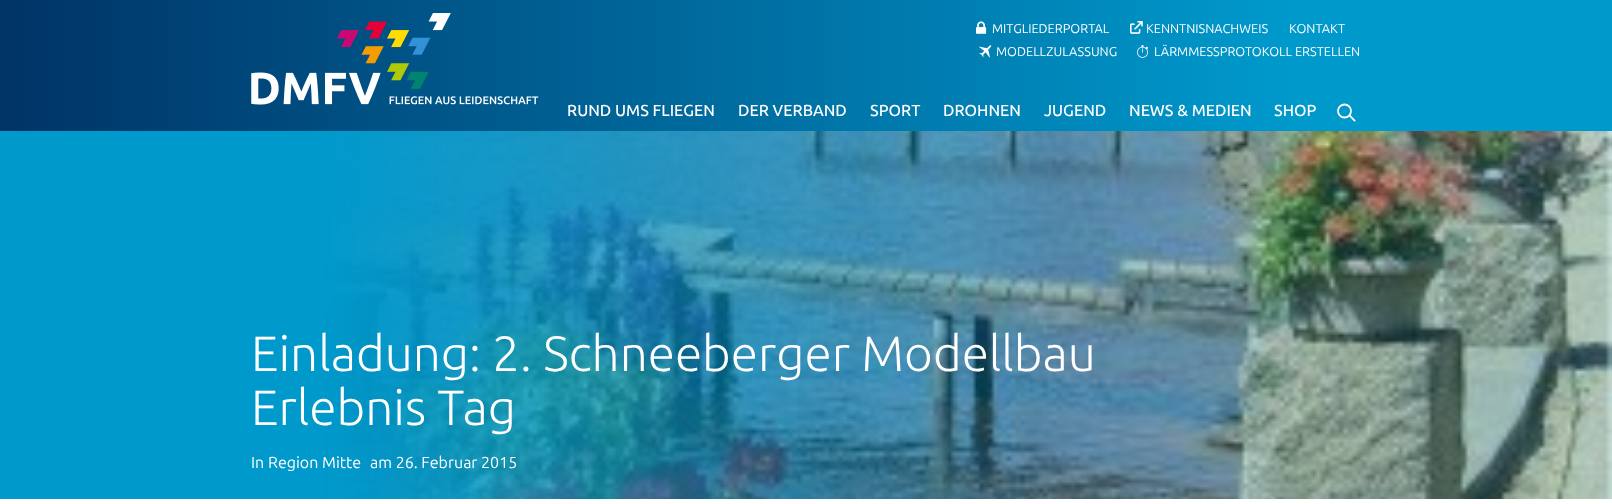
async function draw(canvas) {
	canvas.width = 1612;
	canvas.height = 504;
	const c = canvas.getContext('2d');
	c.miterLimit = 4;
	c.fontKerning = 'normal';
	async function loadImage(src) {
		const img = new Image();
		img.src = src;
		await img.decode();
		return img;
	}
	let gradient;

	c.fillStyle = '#fff';
	c.fillRect(0, 0, 1612, 504);
	gradient = c.createLinearGradient(0, 66, 1612, 65);
	gradient.addColorStop(0, '#036');
	gradient.addColorStop(0.8, '#09c');
	c.fillStyle = gradient;
	c.fillRect(0, 0, 1612, 131);
	c.drawImage(await loadImage('img1.png'), 251, 13, 288, 92);
	c.drawImage(await loadImage('img2.png'), 976, 21, 11, 13);
	c.font = '12.75px Ubuntu';
	c.fillStyle = '#fff';
	c.fillText('MITGLIEDERPORTAL', 992, 33);
	c.drawImage(await loadImage('img3.png'), 1130, 21, 13, 13);
	c.fillText('KENNTNISNACHWEIS', 1146, 33);
	c.fillText('KONTAKT', 1289, 33);
	c.drawImage(await loadImage('img4.png'), 979, 45, 13, 13);
	c.fillText('MODELLZULASSUNG', 996, 56);
	c.drawImage(await loadImage('img5.png'), 1137, 45, 12, 13);
	c.fillText('LÄRMMESSPROTOKOLL ERSTELLEN', 1154, 56);
	c.font = '500 16px Ubuntu';
	for (const [text, x, y] of [
		['RUND UMS FLIEGEN', 567, 116],
		['DER VERBAND', 738, 116],
		['SPORT', 870, 116],
		['DROHNEN', 943, 116],
		['JUGEND', 1044, 116],
		['NEWS & MEDIEN', 1129, 116],
		['SHOP', 1274, 116],
	]) {
		c.fillText(text, x, y);
	}
	c.beginPath();
	c.arc(1344.5, 111, 6.5, 0, 2 * Math.PI);
	c.strokeStyle = '#fff';
	c.lineWidth = 1.8;
	c.stroke();
	c.beginPath();
	c.moveTo(1350, 116);
	c.lineTo(1354.5, 120.5);
	c.lineCap = 'square';
	c.stroke();
	c.drawImage(await loadImage('img6.png'), 0, 131, 1612, 368);
	c.font = '300 49.6px Ubuntu';
	c.fillText('Einladung: 2. Schneeberger Modellbau', 251, 371);
	c.fillText('Erlebnis Tag', 251, 425);
	c.font = '16px Ubuntu';
	c.fillText('In', 251, 468);
	c.fillStyle = '#09c';
	c.fillRect(338, 469, 23, 1);
	c.fillStyle = '#fff';
	c.fillText('Region Mitte', 268, 468);
	c.fillText('am 26. Februar 2015', 370, 468);
}

draw(document.querySelector('canvas'));
